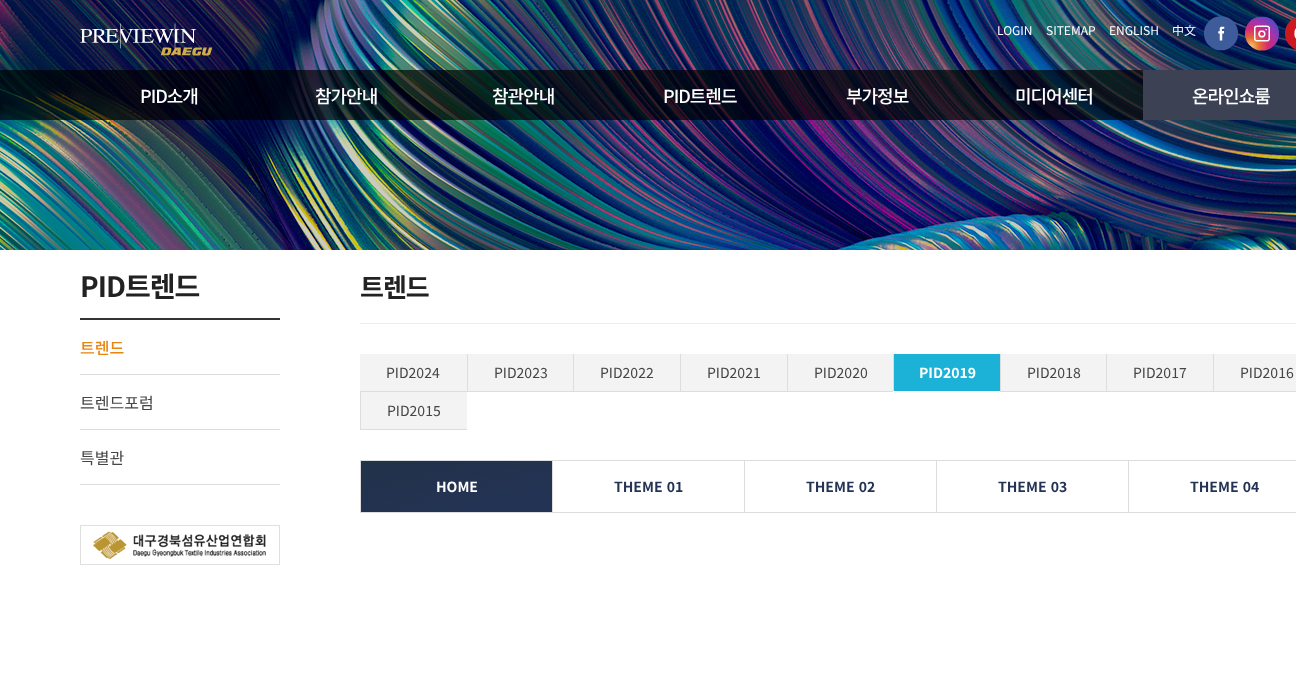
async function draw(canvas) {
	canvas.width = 1296;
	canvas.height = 685;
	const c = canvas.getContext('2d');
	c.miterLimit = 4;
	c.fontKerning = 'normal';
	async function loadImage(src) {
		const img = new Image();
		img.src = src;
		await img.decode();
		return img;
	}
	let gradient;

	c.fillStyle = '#fff';
	c.fillRect(0, 0, 1296, 685);
	c.drawImage(await loadImage('img1.png'), 0, 0, 1296, 250);
	c.drawImage(await loadImage('img2.png'), 80, 23, 133, 33);
	c.font = '12px Noto Sans KR';
	for (const [text, x, y] of [
		['LOGIN', 997, 35],
		['SITEMAP', 1046, 35],
		['ENGLISH', 1109, 35],
		['中文', 1172, 35],
	]) {
		c.fillText(text, x, y);
	}
	c.drawImage(await loadImage('img3.png'), 1204, 16, 34, 35);
	c.drawImage(await loadImage('img4.png'), 1245, 16, 34, 35);
	c.drawImage(await loadImage('img5.png'), 1285, 17, 11, 33);
	c.fillStyle = '#00000033';
	c.fillRect(0, 70, 1143, 50);
	c.fillStyle = '#00000096';
	c.fillRect(0, 70, 1143, 50);
	c.letterSpacing = '-1px';
	c.font = '500 18px Noto Sans KR';
	c.fillStyle = '#fff';
	for (const [text, x, y] of [
		['PID소개', 140, 103],
		['참가안내', 315, 103],
		['참관안내', 492, 103],
		['PID트렌드', 663, 103],
		['부가정보', 846, 103],
		['미디어센터', 1015, 103],
	]) {
		c.fillText(text, x, y);
	}
	c.fillStyle = '#3c4253';
	c.fillRect(1143, 70, 153, 50);
	c.fillStyle = '#fff';
	c.fillText('온라인쇼룸', 1192, 103);
	c.fillStyle = '#333';
	c.fillRect(80, 318, 200, 2);
	c.font = 'bold 28px Noto Sans KR';
	c.fillStyle = '#222';
	c.fillText('PID트렌드', 80, 297);
	c.fillStyle = '#ddd';
	c.fillRect(80, 374, 200, 1);
	c.letterSpacing = '0px';
	c.font = '500 16px Noto Sans KR';
	c.fillStyle = '#e88611';
	c.fillText('트렌드', 80, 354);
	c.fillStyle = '#ddd';
	c.fillRect(80, 429, 200, 1);
	c.font = '16px Noto Sans KR';
	c.fillStyle = '#454545';
	c.fillText('트렌드포럼', 80, 409);
	c.fillStyle = '#ddd';
	c.fillRect(80, 484, 200, 1);
	c.fillStyle = '#454545';
	c.fillText('특별관', 80, 464);
	c.drawImage(await loadImage('img6.png'), 80, 525, 200, 40);
	c.letterSpacing = '-1px';
	c.font = 'bold 26px Noto Sans KR';
	c.fillStyle = '#222';
	c.fillText('트렌드', 360, 297);
	for (const [x, y, w, h, color] of [
		[360, 323, 936, 1, '#eee'],
		[360, 354, 107, 37, '#f3f3f3'],
		[360, 391, 533, 1, '#ddd'],
	]) {
		c.fillStyle = color;
		c.fillRect(x, y, w, h);
	}
	c.letterSpacing = '0px';
	c.font = '14px Noto Sans KR';
	c.fillStyle = '#454545';
	c.fillText('PID2024', 386, 378);
	c.fillStyle = '#f3f3f3';
	c.fillRect(468, 354, 105, 37);
	c.fillStyle = '#ddd';
	c.fillRect(467, 354, 1, 38);
	c.fillStyle = '#454545';
	c.fillText('PID2023', 494, 378);
	c.fillStyle = '#f3f3f3';
	c.fillRect(574, 354, 106, 37);
	c.fillStyle = '#ddd';
	c.fillRect(573, 354, 1, 38);
	c.fillStyle = '#454545';
	c.fillText('PID2022', 600, 378);
	c.fillStyle = '#f3f3f3';
	c.fillRect(681, 354, 106, 37);
	c.fillStyle = '#ddd';
	c.fillRect(680, 354, 1, 38);
	c.fillStyle = '#454545';
	c.fillText('PID2021', 707, 378);
	c.fillStyle = '#f3f3f3';
	c.fillRect(788, 354, 105, 37);
	c.fillStyle = '#ddd';
	c.fillRect(787, 354, 1, 38);
	c.fillStyle = '#454545';
	c.fillText('PID2020', 814, 378);
	c.fillStyle = '#1cb1d7';
	c.fillRect(894, 354, 106, 37);
	c.fillStyle = '#ddd';
	c.fillRect(893, 354, 1, 37);
	c.font = 'bold 14px Noto Sans KR';
	c.fillStyle = '#fff';
	c.fillText('PID2019', 919, 378);
	for (const [x, y, w, h, color] of [
		[1001, 354, 105, 37, '#f3f3f3'],
		[1000, 391, 296, 1, '#ddd'],
		[1000, 354, 1, 38, '#ddd'],
	]) {
		c.fillStyle = color;
		c.fillRect(x, y, w, h);
	}
	c.font = '14px Noto Sans KR';
	c.fillStyle = '#454545';
	c.fillText('PID2018', 1027, 378);
	c.fillStyle = '#f3f3f3';
	c.fillRect(1107, 354, 106, 37);
	c.fillStyle = '#ddd';
	c.fillRect(1106, 354, 1, 38);
	c.fillStyle = '#454545';
	c.fillText('PID2017', 1133, 378);
	c.fillStyle = '#f3f3f3';
	c.fillRect(1214, 354, 82, 37);
	c.fillStyle = '#ddd';
	c.fillRect(1213, 354, 1, 38);
	c.fillStyle = '#454545';
	c.fillText('PID2016', 1240, 378);
	for (const [x, y, w, h, color] of [
		[361, 392, 106, 37, '#f3f3f3'],
		[360, 429, 107, 1, '#ddd'],
		[360, 392, 1, 38, '#ddd'],
	]) {
		c.fillStyle = color;
		c.fillRect(x, y, w, h);
	}
	c.fillStyle = '#454545';
	c.fillText('PID2015', 387, 416);
	gradient = c.createLinearGradient(444, 439, 469, 534);
	gradient.addColorStop(0, '#22324a');
	gradient.addColorStop(1, '#233355');
	c.fillStyle = gradient;
	c.fillRect(361, 461, 191, 51);
	for (const [x, y, w, h, color] of [
		[360, 460, 768, 1, '#ddd'],
		[360, 512, 768, 1, '#ddd'],
		[360, 460, 1, 53, '#ddd'],
	]) {
		c.fillStyle = color;
		c.fillRect(x, y, w, h);
	}
	c.font = 'bold 14px Noto Sans KR';
	c.fillStyle = '#fff';
	c.fillText('HOME', 436, 492);
	c.fillStyle = '#ddd';
	c.fillRect(552, 460, 1, 53);
	c.wordSpacing = '1px';
	c.fillStyle = '#233355';
	c.fillText('THEME 01', 614, 492);
	c.fillStyle = '#ddd';
	c.fillRect(744, 460, 1, 53);
	c.fillStyle = '#233355';
	c.fillText('THEME 02', 806, 492);
	c.fillStyle = '#ddd';
	c.fillRect(936, 460, 1, 53);
	c.fillStyle = '#233355';
	c.fillText('THEME 03', 998, 492);
	c.strokeStyle = '#ddd';
	c.strokeRect(1128.5, 460.5, 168, 52);
	c.fillText('THEME 04', 1190, 492);
}

draw(document.querySelector('canvas'));
